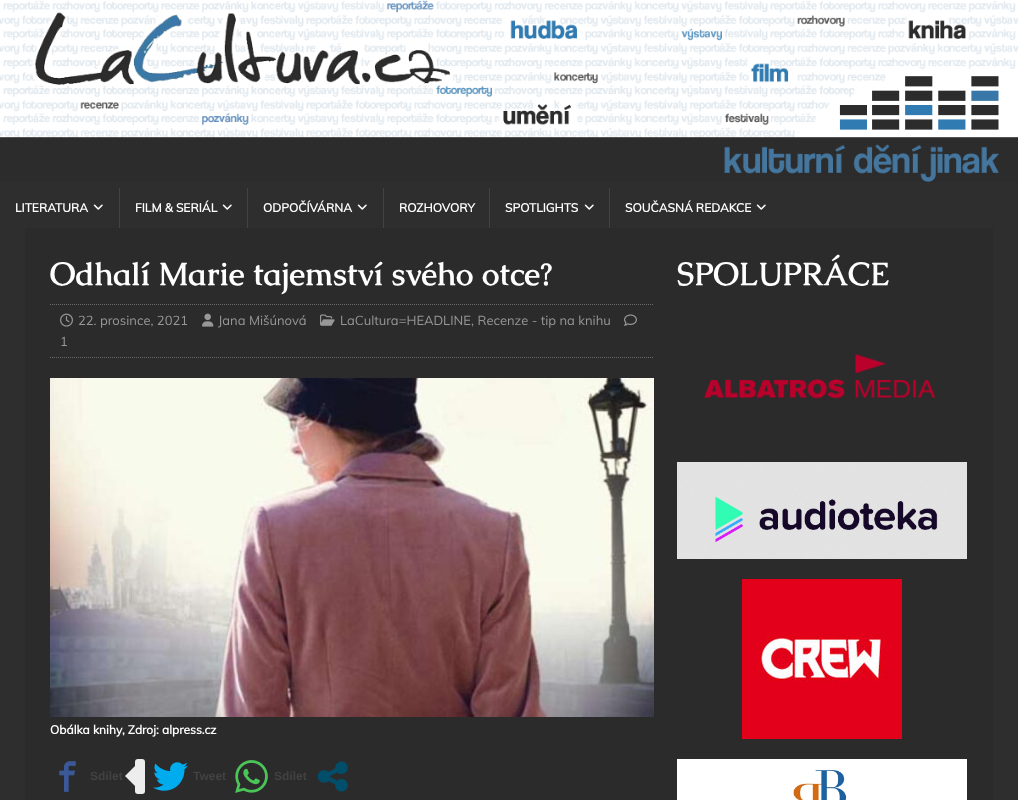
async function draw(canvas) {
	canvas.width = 1018;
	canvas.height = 800;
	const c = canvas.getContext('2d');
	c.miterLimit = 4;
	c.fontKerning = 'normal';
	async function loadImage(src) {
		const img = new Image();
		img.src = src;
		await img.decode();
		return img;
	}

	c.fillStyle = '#2e2e2e';
	c.fillRect(0, 0, 1018, 800);
	c.drawImage(await loadImage('img1.png'), 0, 0, 1018, 182);
	c.font = 'bold 12px Muli';
	c.fillStyle = '#fff';
	c.fillText('LITERATURA', 15, 212);
	c.drawImage(await loadImage('img2.png'), 93, 204, 10, 6);
	c.fillStyle = '#434343';
	c.fillRect(119, 188, 1, 40);
	c.fillStyle = '#fff';
	c.fillText('FILM & SERIÁL', 135, 212);
	c.drawImage(await loadImage('img2.png'), 222, 204, 10, 6);
	c.fillStyle = '#434343';
	c.fillRect(247, 188, 1, 40);
	c.fillStyle = '#fff';
	c.fillText('ODPOČÍVÁRNA', 263, 212);
	c.drawImage(await loadImage('img2.png'), 357, 204, 10, 6);
	c.fillStyle = '#434343';
	c.fillRect(383, 188, 1, 40);
	c.fillStyle = '#fff';
	c.fillText('ROZHOVORY', 399, 212);
	c.fillStyle = '#434343';
	c.fillRect(489, 188, 1, 40);
	c.fillStyle = '#fff';
	c.fillText('SPOTLIGHTS', 505, 212);
	c.drawImage(await loadImage('img2.png'), 584, 204, 10, 6);
	c.fillStyle = '#434343';
	c.fillRect(609, 188, 1, 40);
	c.fillStyle = '#fff';
	c.fillText('SOUČASNÁ REDAKCE', 625, 212);
	c.drawImage(await loadImage('img2.png'), 756, 204, 10, 6);
	c.fillStyle = '#2b2b2b';
	c.fillRect(25, 228, 968, 572);
	c.font = 'bold 32px Caudex';
	c.fillStyle = '#fff';
	c.fillText('Odhalí Marie tajemství svého otce?', 50, 285);
	c.beginPath();
	c.moveTo(50, 304.5);
	c.lineTo(654, 304.5);
	c.strokeStyle = '#6b6b6b';
	c.setLineDash([1, 1]);
	c.stroke();
	c.beginPath();
	c.moveTo(50, 357.5);
	c.lineTo(654, 357.5);
	c.stroke();
	c.drawImage(await loadImage('img3.png'), 60, 313, 13, 14);
	c.font = '13px Muli';
	c.fillStyle = '#979797';
	c.fillText('22. prosince, 2021', 78, 325);
	c.drawImage(await loadImage('img4.png'), 202, 313, 12, 14);
	c.fillText('Jana Mišúnová', 218, 325);
	c.drawImage(await loadImage('img5.png'), 320, 314, 15, 12);
	c.fillText('LaCultura=HEADLINE, Recenze - tip na knihu', 340, 325);
	c.drawImage(await loadImage('img6.png'), 624, 314, 13, 12);
	c.fillText('1', 60, 346);
	c.drawImage(await loadImage('img7.png'), 50, 378, 604, 339);
	c.font = 'bold 12px Muli';
	c.fillStyle = '#fff';
	c.fillText('Obálka knihy, Zdroj: alpress.cz', 50, 734);
	c.drawImage(await loadImage('img8.png'), 59, 761, 17, 31);
	c.font = 'bold 12px Liberation Sans';
	c.fillStyle = '#424242';
	c.fillText('Sdílet', 90, 780);
	c.fillStyle = '#ededed';
	c.beginPath();
	c.roundRect(135, 759, 10, 35, 3);
	c.fill();
	c.beginPath();
	c.moveTo(135, 766);
	c.lineTo(135, 786);
	c.lineTo(125, 776);
	c.closePath();
	c.fill();
	c.drawImage(await loadImage('img9.png'), 153, 762, 35, 29);
	c.fillStyle = '#424242';
	c.fillText('Tweet', 193, 780);
	c.drawImage(await loadImage('img10.png'), 235, 760, 33, 33);
	c.fillText('Sdílet', 274, 780);
	c.drawImage(await loadImage('img11.png'), 317, 761, 31, 31);
	c.font = 'bold 32px Caudex';
	c.fillStyle = '#fff';
	c.fillText('SPOLUPRÁCE', 677, 285);
	c.drawImage(await loadImage('img12.png'), 704, 353, 232, 46);
	c.drawImage(await loadImage('img13.png'), 677, 462, 290, 97);
	c.drawImage(await loadImage('img14.png'), 742, 579, 160, 160);
	c.drawImage(await loadImage('img15.png'), 677, 759, 290, 41);
}

draw(document.querySelector('canvas'));
